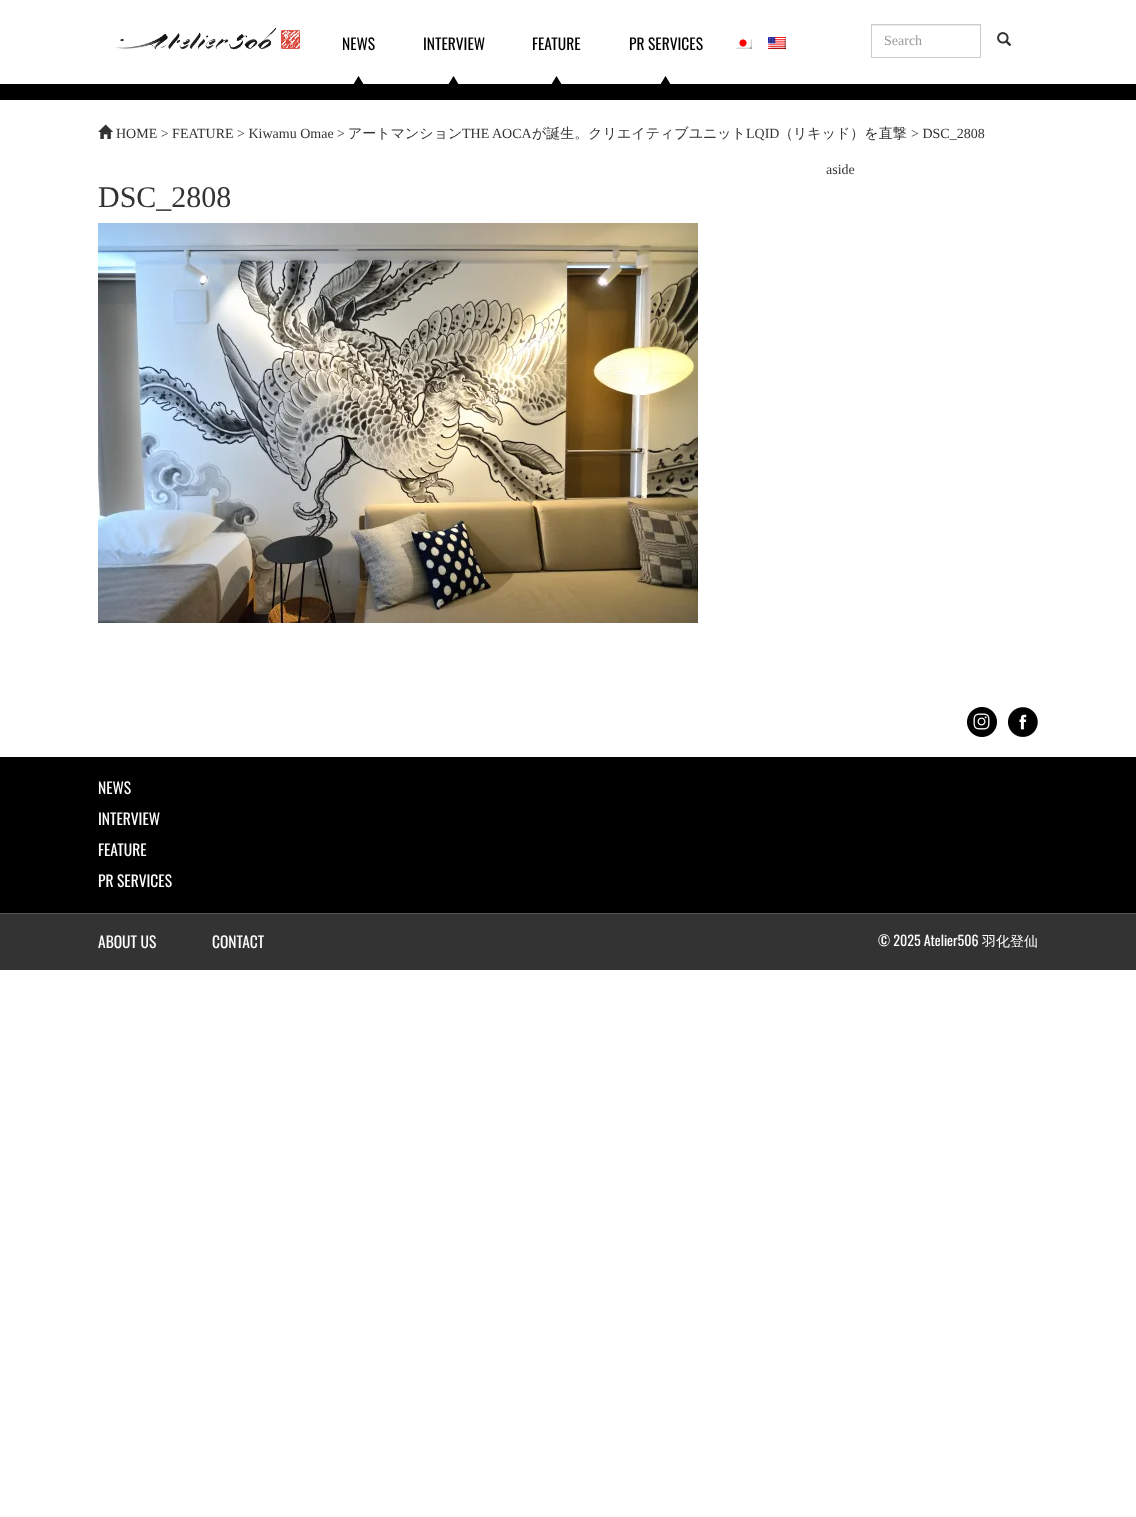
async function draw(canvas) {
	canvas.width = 1136;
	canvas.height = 1517;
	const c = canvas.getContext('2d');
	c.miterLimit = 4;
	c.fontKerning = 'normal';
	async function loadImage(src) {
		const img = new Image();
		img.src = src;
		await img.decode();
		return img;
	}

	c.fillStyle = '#fff';
	c.fillRect(0, 0, 1136, 1517);
	c.fillStyle = '#000';
	c.fillRect(0, 84, 1136, 16);
	c.drawImage(await loadImage('img1.png'), 115, 27, 186, 23);
	c.beginPath();
	c.moveTo(358.5, 76);
	c.lineTo(364, 85);
	c.lineTo(353, 85);
	c.closePath();
	c.fill('evenodd');
	c.font = '15.5px Oswald';
	c.fillText('NEWS', 342, 50);
	c.beginPath();
	c.moveTo(453.5, 76);
	c.lineTo(459, 85);
	c.lineTo(448, 85);
	c.closePath();
	c.fill('evenodd');
	c.fillText('INTERVIEW', 423, 50);
	c.beginPath();
	c.moveTo(556.5, 76);
	c.lineTo(562, 85);
	c.lineTo(551, 85);
	c.closePath();
	c.fill('evenodd');
	c.fillText('FEATURE', 532, 50);
	c.beginPath();
	c.moveTo(665.5, 76);
	c.lineTo(671, 85);
	c.lineTo(660, 85);
	c.closePath();
	c.fill('evenodd');
	c.fillText('PR SERVICES', 629, 50);
	c.drawImage(await loadImage('img2.png'), 736, 39, 16, 10);
	c.drawImage(await loadImage('img3.png'), 768, 37, 18, 12);
	c.fillStyle = '#ececec';
	c.fillRect(872, 25, 108, 1);
	c.strokeStyle = '#ccc';
	c.strokeRect(871.5, 24.5, 109, 33);
	c.font = '14px Liberation Serif';
	c.fillStyle = '#999';
	c.fillText('Search', 884, 45);
	c.drawImage(await loadImage('img4.png'), 997, 32, 15, 14);
	c.drawImage(await loadImage('img5.png'), 98, 124, 15, 15);
	c.fillStyle = '#333';
	c.fillText('HOME > FEATURE > Kiwamu Omae >', 116, 138);
	c.font = '500 14px WenQuanYi Zen Hei';
	c.fillText('アートマンション', 348, 138);
	c.font = '14px Liberation Serif';
	c.fillText('THE AOCA', 462, 138);
	c.font = '500 14px WenQuanYi Zen Hei';
	c.fillText('が誕生。クリエイティブユニット', 532, 138);
	c.font = '14px Liberation Serif';
	c.fillText('LQID', 746, 138);
	c.font = '500 14px WenQuanYi Zen Hei';
	c.fillText('（リキッド）を直撃', 779, 138);
	c.font = '14px Liberation Serif';
	c.fillText('> DSC_2808', 911, 138);
	c.fillText('aside', 826, 174);
	c.font = '30px Liberation Serif';
	c.fillText('DSC_2808', 98, 207);
	c.drawImage(await loadImage('img6.png'), 98, 223, 600, 400);
	c.drawImage(await loadImage('img7.png'), 967, 707, 30, 30);
	c.drawImage(await loadImage('img8.png'), 1008, 707, 30, 30);
	c.fillStyle = '#000';
	c.fillRect(0, 757, 1136, 156);
	c.fillStyle = '#555';
	c.fillRect(0, 913, 1136, 1);
	c.font = '15.5px Oswald';
	c.fillStyle = '#fff';
	for (const [text, x, y] of [
		['NEWS', 98, 794],
		['INTERVIEW', 98, 825],
		['FEATURE', 98, 856],
		['PR SERVICES', 98, 887],
	]) {
		c.fillText(text, x, y);
	}
	c.fillStyle = '#333';
	c.fillRect(0, 914, 1136, 56);
	c.fillStyle = '#fff';
	c.fillText('ABOUT US', 98, 948);
	c.fillText('CONTACT', 212, 948);
	c.font = '14px Oswald';
	c.fillText('© 2025 Atelier506', 878, 946);
	c.font = '500 14px WenQuanYi Zen Hei';
	c.fillText('羽化登仙', 982, 946);
}

draw(document.querySelector('canvas'));
